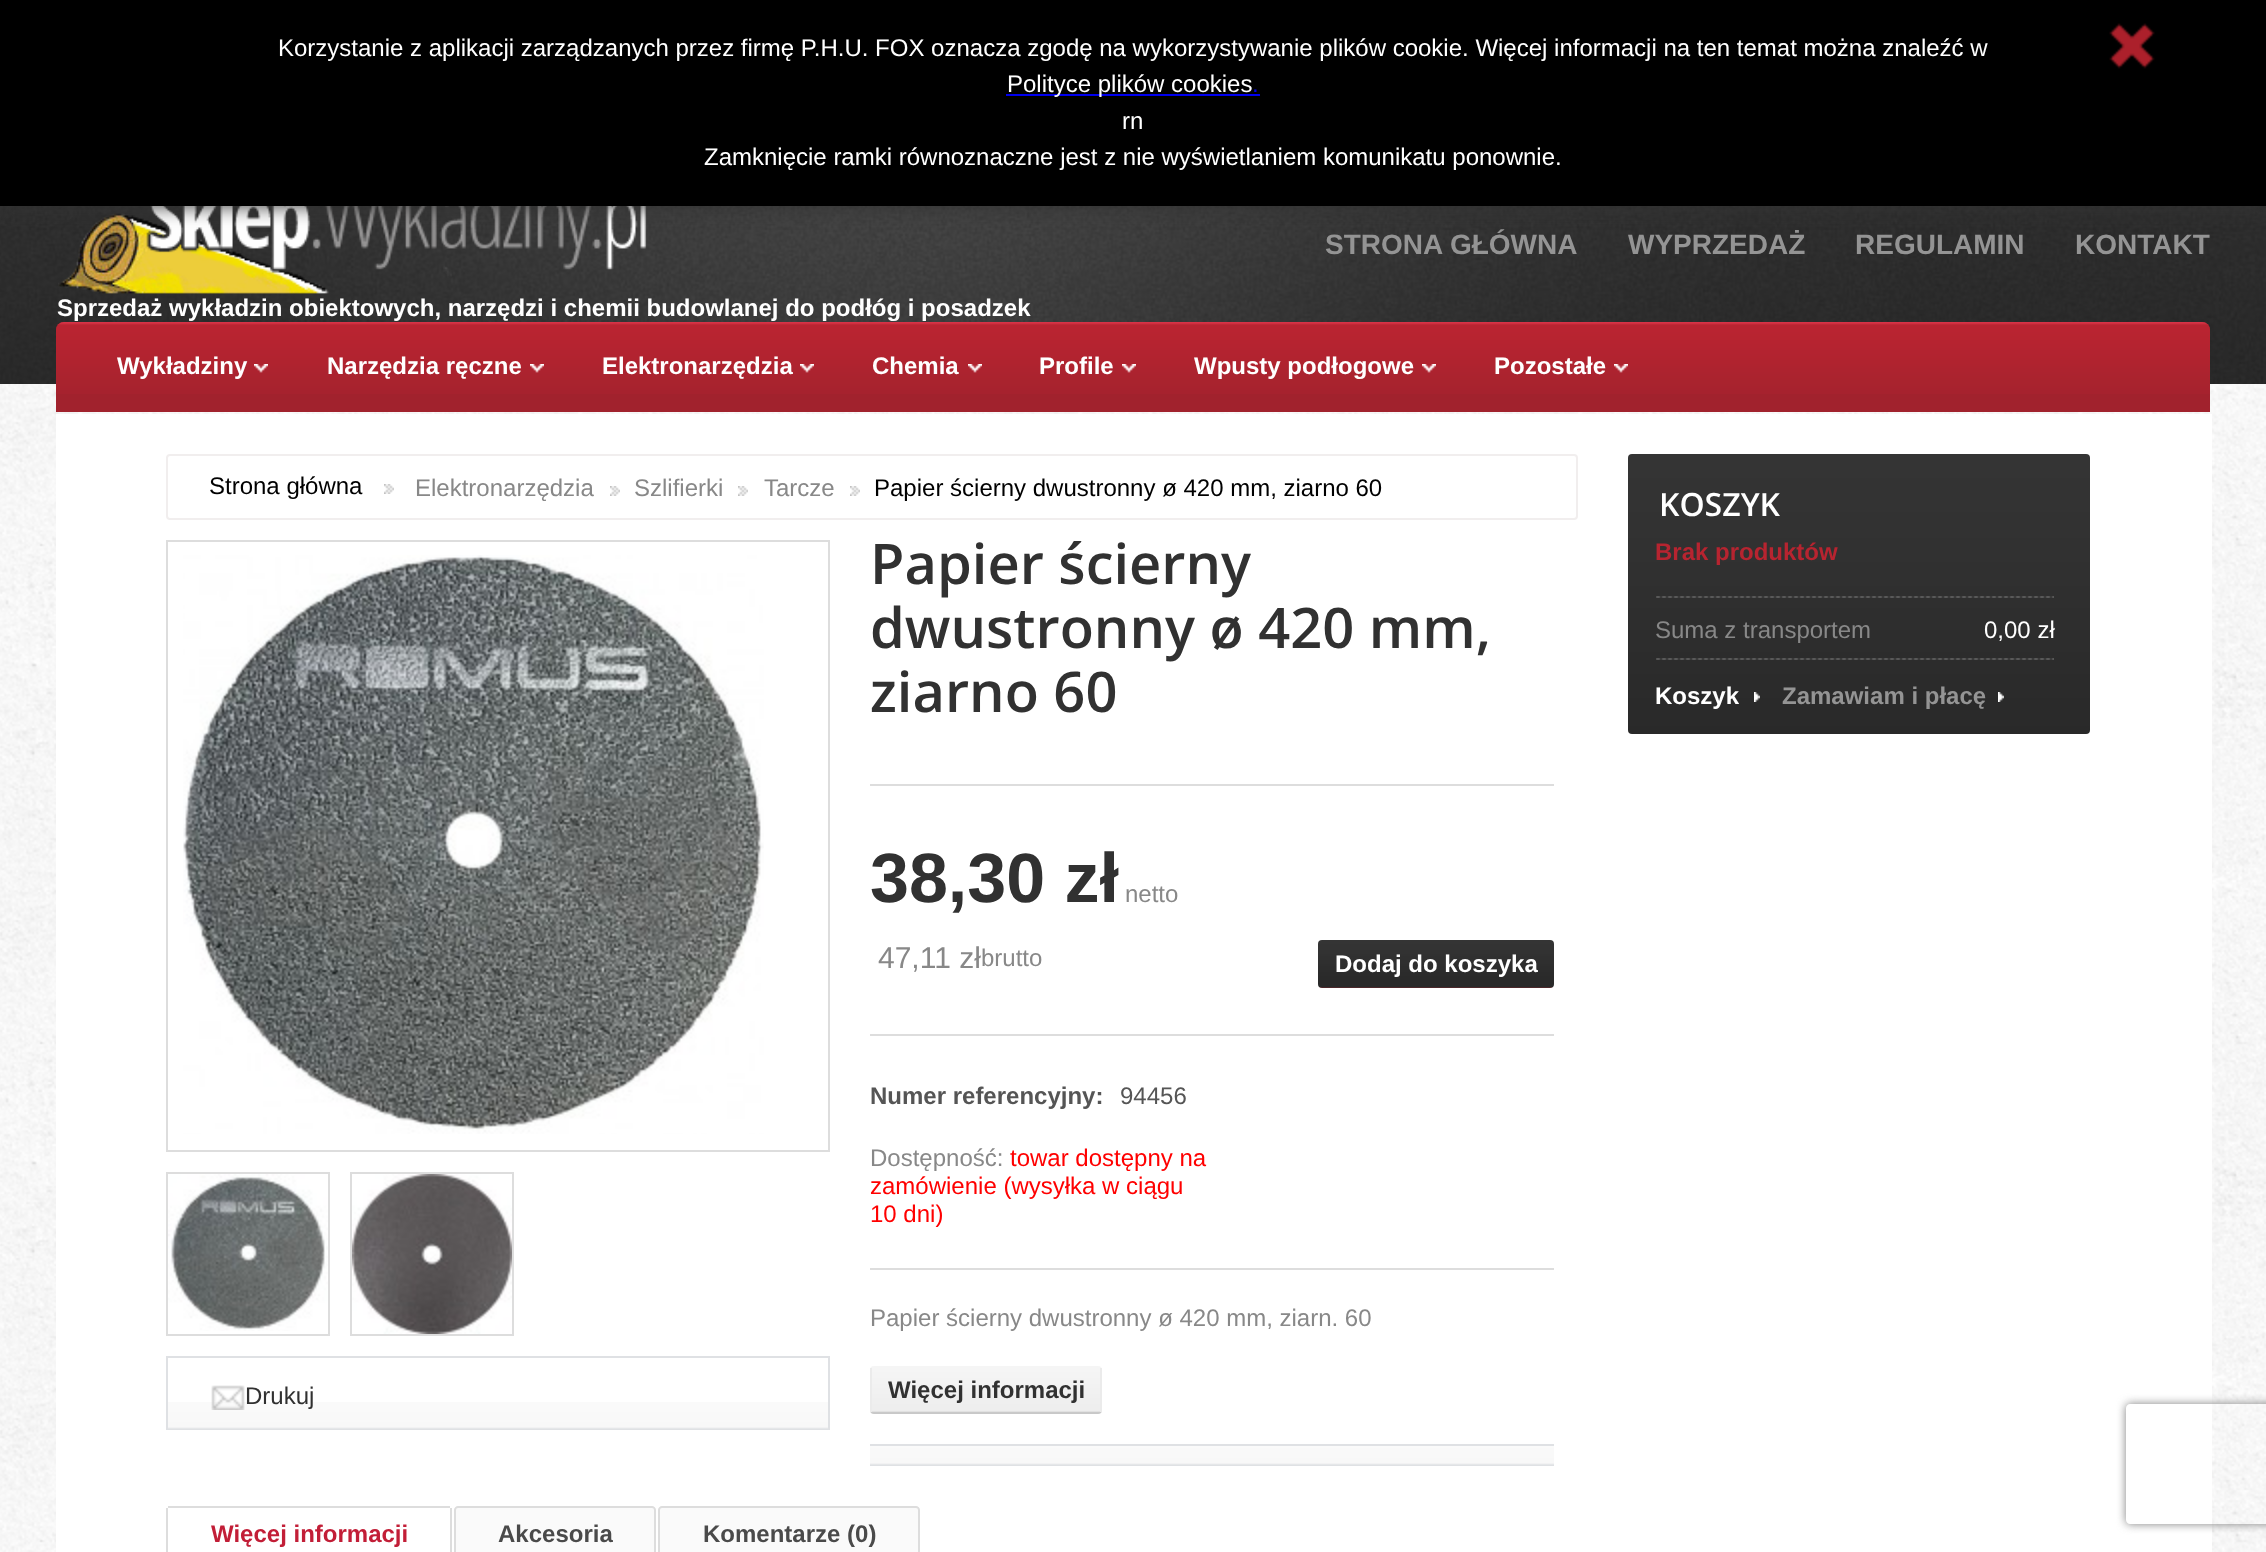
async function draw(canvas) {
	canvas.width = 2266;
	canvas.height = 1552;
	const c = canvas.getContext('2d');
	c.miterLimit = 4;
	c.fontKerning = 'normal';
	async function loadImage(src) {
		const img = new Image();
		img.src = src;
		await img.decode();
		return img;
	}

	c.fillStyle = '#fff';
	c.fillRect(0, 0, 2266, 1552);
	c.drawImage(await loadImage('img3.png'), 0, 206, 2266, 178);
	c.drawImage(await loadImage('img4.png'), 58, 206, 589, 88);
	c.fillStyle = '#333';
	c.filter = 'blur(10px)';
	c.beginPath();
	c.rect(0, 0, 2266, 206);
	c.fill();
	c.filter = 'none';
	c.fillStyle = '#000';
	c.fillRect(0, 0, 2266, 206);
	c.font = '24px Liberation Sans';
	c.fillStyle = '#fff';
	c.fillText('Korzystanie z aplikacji zarządzanych przez firmę P.H.U. FOX oznacza zgodę na wykorzystywanie plików cookie. Więcej informacji na ten temat można znaleźć w', 278, 56);
	c.fillStyle = '#00e';
	c.fillRect(1006, 94, 254, 2);
	c.fillStyle = '#fff';
	c.fillText('Polityce plików cookies', 1007, 92);
	c.fillStyle = '#00e';
	c.fillText('.', 1252, 92);
	c.drawImage(await loadImage('img1.png'), 2109, 23, 46, 46);
	c.fillStyle = '#fff';
	c.fillText('rn', 1122, 129);
	c.fillText('Zamknięcie ramki równoznaczne jest z nie wyświetlaniem komunikatu ponownie.', 704, 165);
	c.drawImage(await loadImage('img2.png'), 0, 384, 2266, 1168);
	c.font = 'bold 28px Liberation Sans';
	c.fillStyle = '#949494';
	for (const [text, x, y] of [
		['STRONA GŁÓWNA', 1325, 254],
		['WYPRZEDAŻ', 1628, 254],
		['REGULAMIN', 1855, 254],
		['KONTAKT', 2075, 254],
	]) {
		c.fillText(text, x, y);
	}
	c.font = 'bold 24px Liberation Sans';
	c.fillStyle = '#fff';
	c.fillText('Sprzedaż wykładzin obiektowych, narzędzi i chemii budowlanej do podłóg i posadzek', 57, 316);
	c.fillStyle = '#a1222d';
	c.beginPath();
	c.roundRect(56, 322, 2154, 90, [8, 8, 0, 0]);
	c.fill();
	c.drawImage(await loadImage('img5.png'), 56, 322, 2154, 72);
	c.drawImage(await loadImage('img6.png'), 254, 364, 14, 9);
	c.fillStyle = '#fff';
	c.fillText('Wykładziny', 117, 374);
	c.drawImage(await loadImage('img6.png'), 530, 364, 14, 9);
	c.fillText('Narzędzia ręczne', 327, 374);
	c.drawImage(await loadImage('img6.png'), 800, 364, 14, 9);
	c.fillText('Elektronarzędzia', 602, 374);
	c.drawImage(await loadImage('img6.png'), 968, 364, 14, 9);
	c.fillText('Chemia', 872, 374);
	c.drawImage(await loadImage('img6.png'), 1122, 364, 14, 9);
	c.fillText('Profile', 1039, 374);
	c.drawImage(await loadImage('img6.png'), 1422, 364, 14, 9);
	c.fillText('Wpusty podłogowe', 1194, 374);
	c.drawImage(await loadImage('img6.png'), 1614, 364, 14, 9);
	c.fillText('Pozostałe', 1494, 374);
	c.fillRect(56, 414, 2156, 1138);
	c.beginPath();
	c.roundRect(167, 455, 1410, 64, 3);
	c.strokeStyle = '#f1eeee';
	c.lineWidth = 2;
	c.stroke();
	c.font = '24px Liberation Sans';
	c.fillStyle = '#000';
	c.fillText('Strona główna', 209, 494);
	c.drawImage(await loadImage('img7.png'), 384, 484, 10, 10);
	c.fillStyle = '#888';
	c.fillText('Elektronarzędzia', 415, 496);
	c.drawImage(await loadImage('img7.png'), 610, 486, 10, 10);
	c.fillText('Szlifierki', 634, 496);
	c.drawImage(await loadImage('img7.png'), 738, 486, 10, 10);
	c.fillText('Tarcze', 764, 496);
	c.drawImage(await loadImage('img7.png'), 850, 486, 10, 10);
	c.fillStyle = '#000';
	c.fillText('Papier ścierny dwustronny ø 420 mm, ziarno 60', 874, 496);
	c.strokeStyle = '#ddd';
	c.strokeRect(167, 541, 662, 610);
	c.drawImage(await loadImage('img8.png'), 183, 555, 581, 579);
	c.strokeRect(167, 1173, 162, 162);
	c.drawImage(await loadImage('img9.png'), 168, 1174, 160, 157);
	c.strokeRect(351, 1173, 162, 162);
	c.drawImage(await loadImage('img10.png'), 352, 1174, 160, 160);
	c.drawImage(await loadImage('img11.png'), 168, 1402, 660, 28);
	for (const [x, y, w, h, color] of [
		[166, 1356, 664, 2, '#dfe1e4'],
		[828, 1356, 2, 74, '#dfe1e4'],
		[166, 1356, 2, 74, '#dfe1e4'],
	]) {
		c.fillStyle = color;
		c.fillRect(x, y, w, h);
	}
	c.drawImage(await loadImage('img12.png'), 211, 1385, 34, 25);
	c.fillStyle = '#313131';
	c.fillText('Drukuj', 245, 1404);
	c.font = '600 56px Open Sans';
	for (const [text, x, y] of [
		['Papier ścierny', 870, 584],
		['dwustronny ø 420 mm,', 870, 648],
		['ziarno 60', 870, 712],
	]) {
		c.fillText(text, x, y);
	}
	c.fillStyle = '#ddd';
	c.fillRect(870, 784, 684, 2);
	c.font = 'bold 70px Liberation Sans';
	c.fillStyle = '#313131';
	c.fillText('38,30 zł', 870, 902);
	c.font = '24px Liberation Sans';
	c.fillStyle = '#888';
	c.fillText('netto', 1125, 902);
	c.font = '30px Liberation Sans';
	c.fillText('47,11 zł', 878, 968);
	c.font = '24px Liberation Sans';
	c.fillText('brutto', 981, 966);
	c.drawImage(await loadImage('img13.png'), 1318, 940, 236, 48);
	c.font = 'bold 24px Liberation Sans';
	c.fillStyle = '#fff';
	c.fillText('Dodaj do koszyka', 1335, 972);
	c.fillStyle = '#ddd';
	c.fillRect(870, 1034, 684, 2);
	c.fillStyle = '#555';
	c.fillText('Numer referencyjny:', 870, 1104);
	c.font = '24px Liberation Sans';
	c.fillText('94456', 1120, 1104);
	c.fillStyle = '#888';
	c.fillText('Dostępność:', 870, 1166);
	c.fillStyle = '#f00';
	for (const [text, x, y] of [
		['towar dostępny na', 1010, 1166],
		['zamówienie (wysyłka w ciągu', 870, 1194],
		['10 dni)', 870, 1222],
	]) {
		c.fillText(text, x, y);
	}
	c.fillStyle = '#ddd';
	c.fillRect(870, 1268, 684, 2);
	c.fillStyle = '#888';
	c.fillText('Papier ścierny dwustronny ø 420 mm, ziarn. 60', 870, 1326);
	c.drawImage(await loadImage('img14.png'), 870, 1366, 232, 48);
	c.fillStyle = '#ebebeb';
	c.fillRect(1100, 1368, 2, 44);
	c.fillRect(870, 1368, 2, 44);
	c.font = 'bold 24px Liberation Sans';
	c.fillStyle = '#313131';
	c.fillText('Więcej informacji', 888, 1398);
	c.drawImage(await loadImage('img15.png'), 870, 1446, 684, 20);
	for (const [x, y, w, h, color] of [
		[870, 1444, 684, 2, '#dfe1e4'],
		[168, 1506, 282, 2, '#ddd'],
		[450, 1508, 2, 44, '#ddd'],
		[166, 1508, 2, 44, '#ddd'],
	]) {
		c.fillStyle = color;
		c.fillRect(x, y, w, h);
	}
	c.fillStyle = '#c21e37';
	c.fillText('Więcej informacji', 211, 1542);
	c.fillStyle = '#fafafa';
	c.beginPath();
	c.moveTo(458, 1507);
	c.lineTo(652, 1507);
	c.bezierCurveTo(653.5, 1507, 655, 1508.5, 655, 1510);
	c.lineTo(655, 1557);
	c.lineTo(455, 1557);
	c.lineTo(455, 1510);
	c.bezierCurveTo(455, 1508.5, 456.5, 1507, 458, 1507);
	c.closePath();
	c.fill();
	c.stroke();
	c.fillStyle = '#4a4a4a';
	c.fillText('Akcesoria', 498, 1542);
	c.fillStyle = '#fafafa';
	c.beginPath();
	c.moveTo(662, 1507);
	c.lineTo(916, 1507);
	c.bezierCurveTo(917.5, 1507, 919, 1508.5, 919, 1510);
	c.lineTo(919, 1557);
	c.lineTo(659, 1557);
	c.lineTo(659, 1510);
	c.bezierCurveTo(659, 1508.5, 660.5, 1507, 662, 1507);
	c.closePath();
	c.fill();
	c.stroke();
	c.fillStyle = '#4a4a4a';
	c.fillText('Komentarze (0)', 703, 1542);
	c.drawImage(await loadImage('img16.png'), 1628, 454, 462, 280);
	c.font = '600 32px Open Sans';
	c.fillStyle = '#fff';
	c.fillText('KOSZYK', 1659, 516);
	c.font = 'bold 24px Liberation Sans';
	c.fillStyle = '#b72430';
	c.fillText('Brak produktów', 1655, 560);
	c.drawImage(await loadImage('img17.png'), 1656, 658, 398, 2);
	c.drawImage(await loadImage('img17.png'), 1656, 596, 398, 2);
	c.font = '24px Liberation Sans';
	c.fillStyle = '#888';
	c.fillText('Suma z transportem', 1655, 638);
	c.fillStyle = '#fff';
	c.fillText('0,00 zł', 1984, 638);
	c.drawImage(await loadImage('img18.png'), 1754, 692, 6, 10);
	c.font = 'bold 24px Liberation Sans';
	c.fillText('Koszyk', 1655, 704);
	c.drawImage(await loadImage('img18.png'), 1998, 692, 6, 10);
	c.fillStyle = '#949494';
	c.fillText('Zamawiam i płacę', 1782, 704);
	c.save();
	c.beginPath();
	c.moveTo(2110, 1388);
	c.lineTo(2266, 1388);
	c.lineTo(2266, 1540);
	c.lineTo(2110, 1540);
	c.closePath();
	c.moveTo(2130, 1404);
	c.lineTo(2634, 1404);
	c.bezierCurveTo(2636, 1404, 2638, 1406, 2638, 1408);
	c.lineTo(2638, 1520);
	c.bezierCurveTo(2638, 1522, 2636, 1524, 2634, 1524);
	c.lineTo(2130, 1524);
	c.bezierCurveTo(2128, 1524, 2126, 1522, 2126, 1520);
	c.lineTo(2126, 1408);
	c.bezierCurveTo(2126, 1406, 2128, 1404, 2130, 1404);
	c.closePath();
	c.clip('evenodd');
	c.fillStyle = '#808080';
	c.filter = 'blur(5px)';
	c.beginPath();
	c.roundRect(2126, 1404, 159, 120, 4);
	c.fill();
	c.filter = 'none';
	c.restore();
}

draw(document.querySelector('canvas'));
